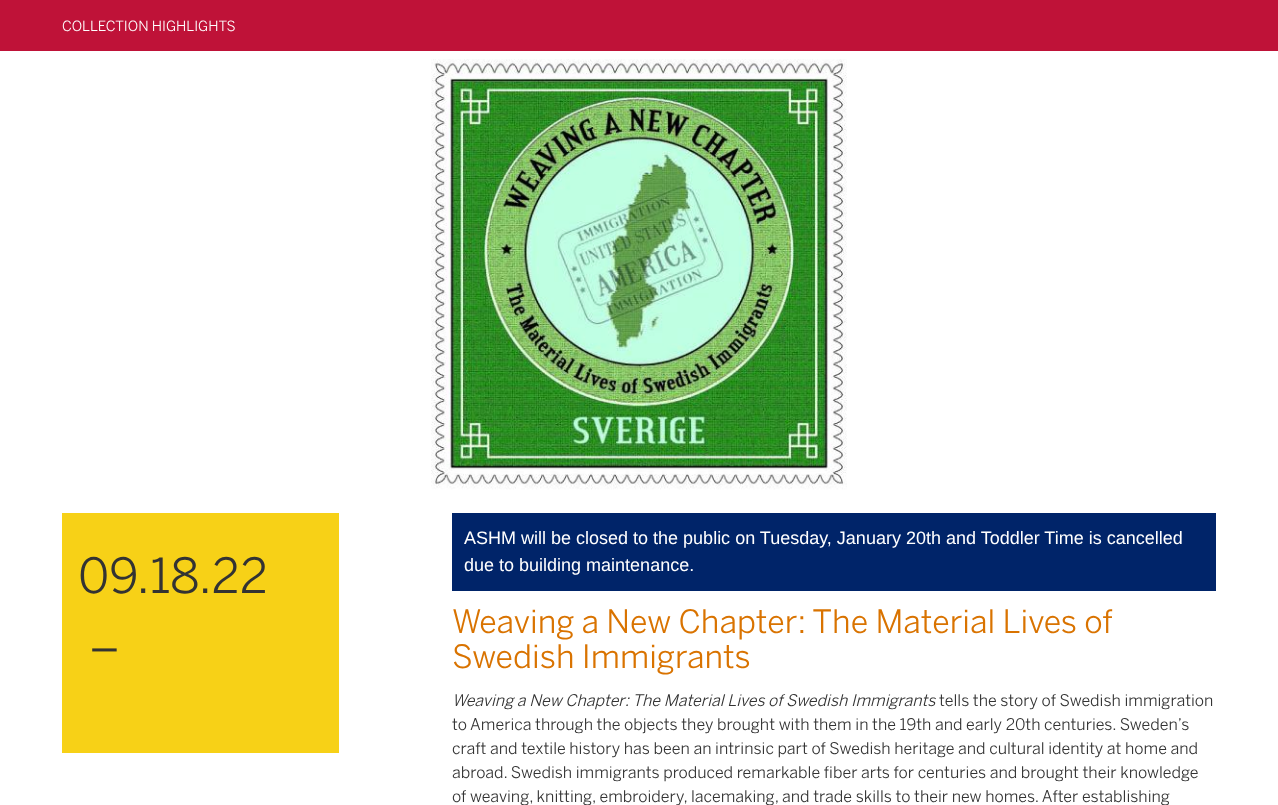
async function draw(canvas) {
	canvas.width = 1278;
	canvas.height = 805;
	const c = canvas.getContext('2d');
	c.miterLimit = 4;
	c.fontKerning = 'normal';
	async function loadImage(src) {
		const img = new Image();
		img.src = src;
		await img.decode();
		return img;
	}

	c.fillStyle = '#fff';
	c.fillRect(0, 0, 1278, 805);
	c.fillStyle = '#bf1238';
	c.fillRect(0, 0, 1278, 51);
	c.font = '14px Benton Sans';
	c.fillStyle = '#fff';
	c.fillText('COLLECTION HIGHLIGHTS', 62, 31);
	c.drawImage(await loadImage('img1.png'), 431, 59, 416, 431);
	c.fillStyle = '#f7d117';
	c.fillRect(62, 513, 277, 240);
	c.font = '48px Benton Sans';
	c.fillStyle = '#333';
	c.fillText('09.18.22', 78, 593);
	c.fillText('–', 89, 665);
	c.fillStyle = '#002469';
	c.fillRect(452, 513, 764, 78);
	c.font = '18px Liberation Sans';
	c.fillStyle = '#fff';
	c.fillText('ASHM will be closed to the public on Tuesday, January 20th and Toddler Time is cancelled', 464, 544);
	c.fillText('due to building maintenance.', 464, 571);
	c.font = '32px Benton Sans';
	c.fillStyle = '#d97300';
	c.fillText('Weaving a New Chapter: The Material Lives of', 452, 633);
	c.fillText('Swedish Immigrants', 452, 668);
	c.font = 'italic 16px Benton Sans';
	c.fillStyle = '#333';
	c.fillText('Weaving a New Chapter: The Material Lives of Swedish Immigrants', 452, 706);
	c.font = '16px Benton Sans';
	for (const [text, x, y] of [
		['tells the story of Swedish immigration', 939, 706],
		['to America through the objects they brought with them in the 19th and early 20th centuries. Sweden’s', 452, 730],
		['craft and textile history has been an intrinsic part of Swedish heritage and cultural identity at home and', 452, 754],
		['abroad. Swedish immigrants produced remarkable fiber arts for centuries and brought their knowledge', 452, 778],
		['of weaving, knitting, embroidery, lacemaking, and trade skills to their new homes. After establishing', 452, 802],
	]) {
		c.fillText(text, x, y);
	}
}

draw(document.querySelector('canvas'));
